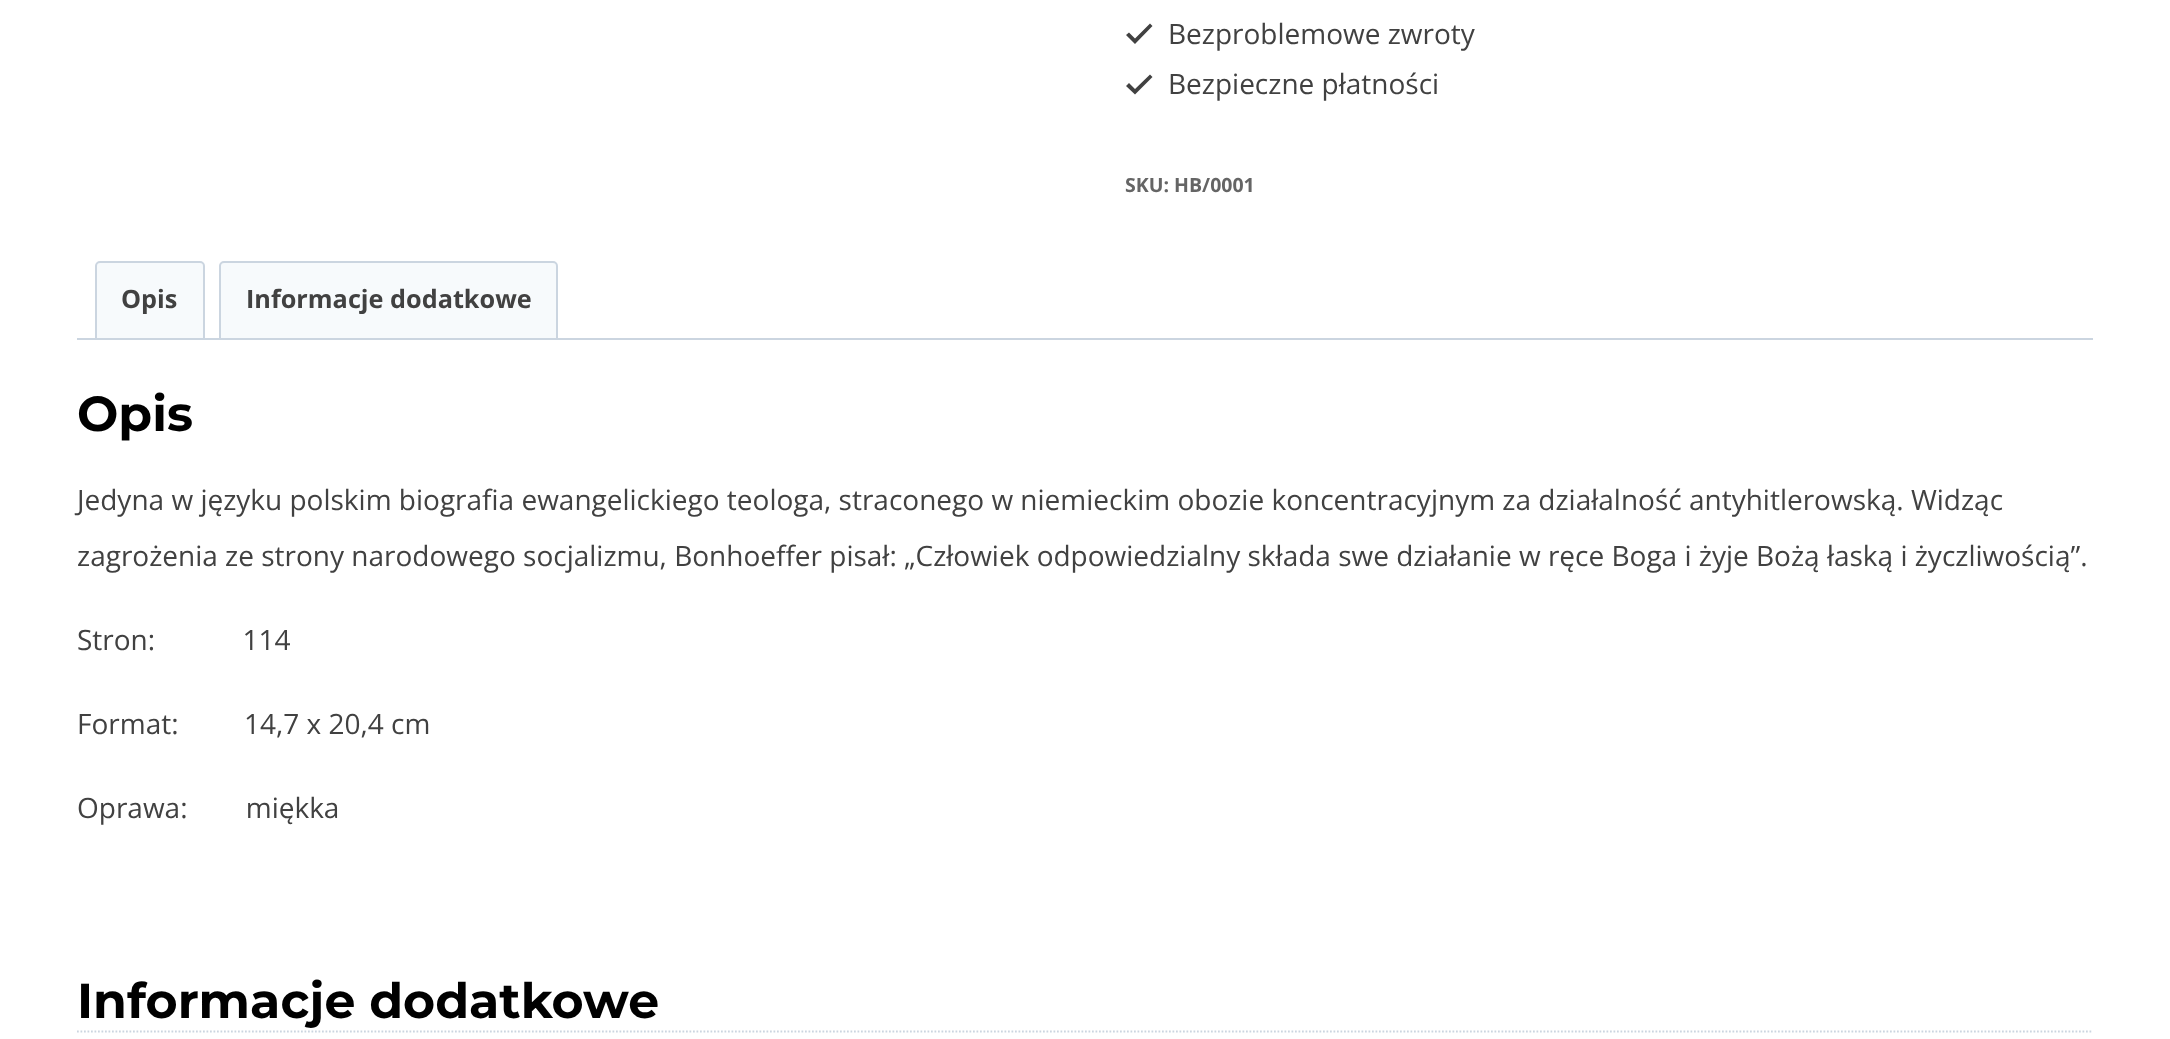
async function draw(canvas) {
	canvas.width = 2170;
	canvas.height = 1039;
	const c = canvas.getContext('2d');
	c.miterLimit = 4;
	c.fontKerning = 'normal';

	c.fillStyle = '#fff';
	c.fillRect(0, 0, 2170, 1039);
	c.fillStyle = '#414141';
	c.beginPath();
	c.moveTo(1150, 23.5);
	c.lineTo(1135, 38.5);
	c.lineTo(1129, 32.5);
	c.lineTo(1126, 35);
	c.lineTo(1135, 44);
	c.lineTo(1152.5, 26);
	c.closePath();
	c.fill();
	c.font = '28px Open Sans';
	c.fillText('Bezproblemowe zwroty', 1168, 44);
	c.beginPath();
	c.moveTo(1150, 74.5);
	c.lineTo(1135, 89);
	c.lineTo(1129, 83);
	c.lineTo(1126, 86);
	c.lineTo(1135, 94.5);
	c.lineTo(1152.5, 77);
	c.closePath();
	c.fill();
	c.fillText('Bezpieczne płatności', 1168, 94);
	c.font = 'bold 19.5px Open Sans';
	c.fillStyle = '#656565';
	c.fillText('SKU: HB/0001', 1125, 192);
	c.fillStyle = '#f7fafc';
	c.beginPath();
	c.roundRect(96, 262, 108, 77, [4, 4, 0, 0]);
	c.fill();
	c.strokeStyle = '#cbd5e0';
	c.lineWidth = 2;
	c.stroke();
	c.font = 'bold 25.25px Open Sans';
	c.fillStyle = '#414141';
	c.fillText('Opis', 121, 308);
	c.fillStyle = '#f7fafc';
	c.beginPath();
	c.roundRect(220, 262, 337, 77, [4, 4, 0, 0]);
	c.fill();
	c.stroke();
	c.fillStyle = '#414141';
	c.fillText('Informacje dodatkowe', 246, 308);
	c.fillStyle = '#cbd5e0';
	c.fillRect(77, 338, 2016, 2);
	c.font = 'bold 49px Montserrat';
	c.fillStyle = '#000';
	c.fillText('Opis', 77, 431);
	c.font = '28px Open Sans';
	c.fillStyle = '#414141';
	for (const [text, x, y] of [
		['Jedyna w języku polskim biografia ewangelickiego teologa, straconego w niemieckim obozie koncentracyjnym za działalność antyhitlerowską. Widząc', 77, 510],
		['zagrożenia ze strony narodowego socjalizmu, Bonhoeffer pisał: „Człowiek odpowiedzialny składa swe działanie w ręce Boga i żyje Bożą łaską i życzliwością”.', 77, 566],
		['Stron:            114', 77, 650],
		['Format:         14,7 x 20,4 cm', 77, 734],
		['Oprawa:        miękka', 77, 818],
	]) {
		c.fillText(text, x, y);
	}
	c.font = 'bold 49px Montserrat';
	c.fillStyle = '#000';
	c.fillText('Informacje dodatkowe', 77, 1018);
	c.beginPath();
	c.moveTo(77, 1031.5);
	c.lineTo(2093, 1031.5);
	c.lineWidth = 1.8;
	c.setLineDash([1.75, 1.75]);
	c.stroke();
}

draw(document.querySelector('canvas'));
